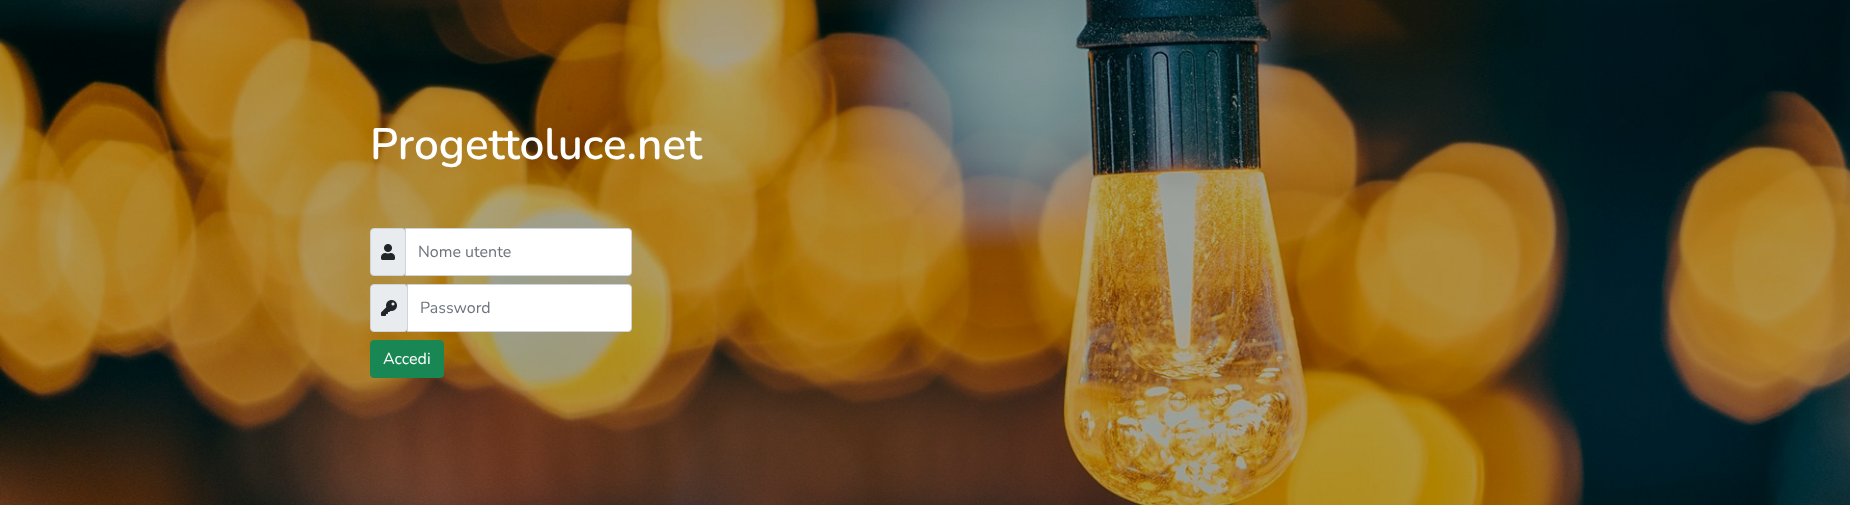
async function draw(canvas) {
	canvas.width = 1850;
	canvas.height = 505;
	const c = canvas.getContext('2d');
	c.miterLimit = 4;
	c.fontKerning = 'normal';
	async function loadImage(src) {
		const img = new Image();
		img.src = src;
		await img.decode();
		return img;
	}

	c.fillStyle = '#fff';
	c.fillRect(0, 0, 1850, 505);
	c.drawImage(await loadImage('img1.png'), 0, 0, 1850, 505);
	c.font = '600 44px Nunito';
	c.fillText('Progettoluce.net', 370, 159);
	c.fillStyle = '#e9ecef';
	c.beginPath();
	c.roundRect(370.5, 228.5, 35, 47, 3.5);
	c.fill();
	c.strokeStyle = '#ced4da';
	c.stroke();
	c.drawImage(await loadImage('img2.png'), 381, 244, 14, 16);
	c.fillStyle = '#fff';
	c.beginPath();
	c.roundRect(405.5, 228.5, 226, 47, [0, 3.5, 3.5, 0]);
	c.fill();
	c.stroke();
	c.font = '16px Nunito';
	c.fillStyle = '#6c757d';
	c.fillText('Nome utente', 418, 257);
	c.fillStyle = '#e9ecef';
	c.beginPath();
	c.roundRect(370.5, 284.5, 37, 47, 3.5);
	c.fill();
	c.stroke();
	c.drawImage(await loadImage('img3.png'), 381, 300, 16, 16);
	c.fillStyle = '#fff';
	c.beginPath();
	c.roundRect(407.5, 284.5, 224, 47, [0, 3.5, 3.5, 0]);
	c.fill();
	c.stroke();
	c.fillStyle = '#6c757d';
	c.fillText('Password', 420, 313);
	c.fillStyle = '#198754';
	c.beginPath();
	c.roundRect(370.5, 340.5, 73, 37, 3.5);
	c.fill();
	c.strokeStyle = '#198754';
	c.stroke();
	c.fillStyle = '#fff';
	c.fillText('Accedi', 383, 364);
}

draw(document.querySelector('canvas'));
